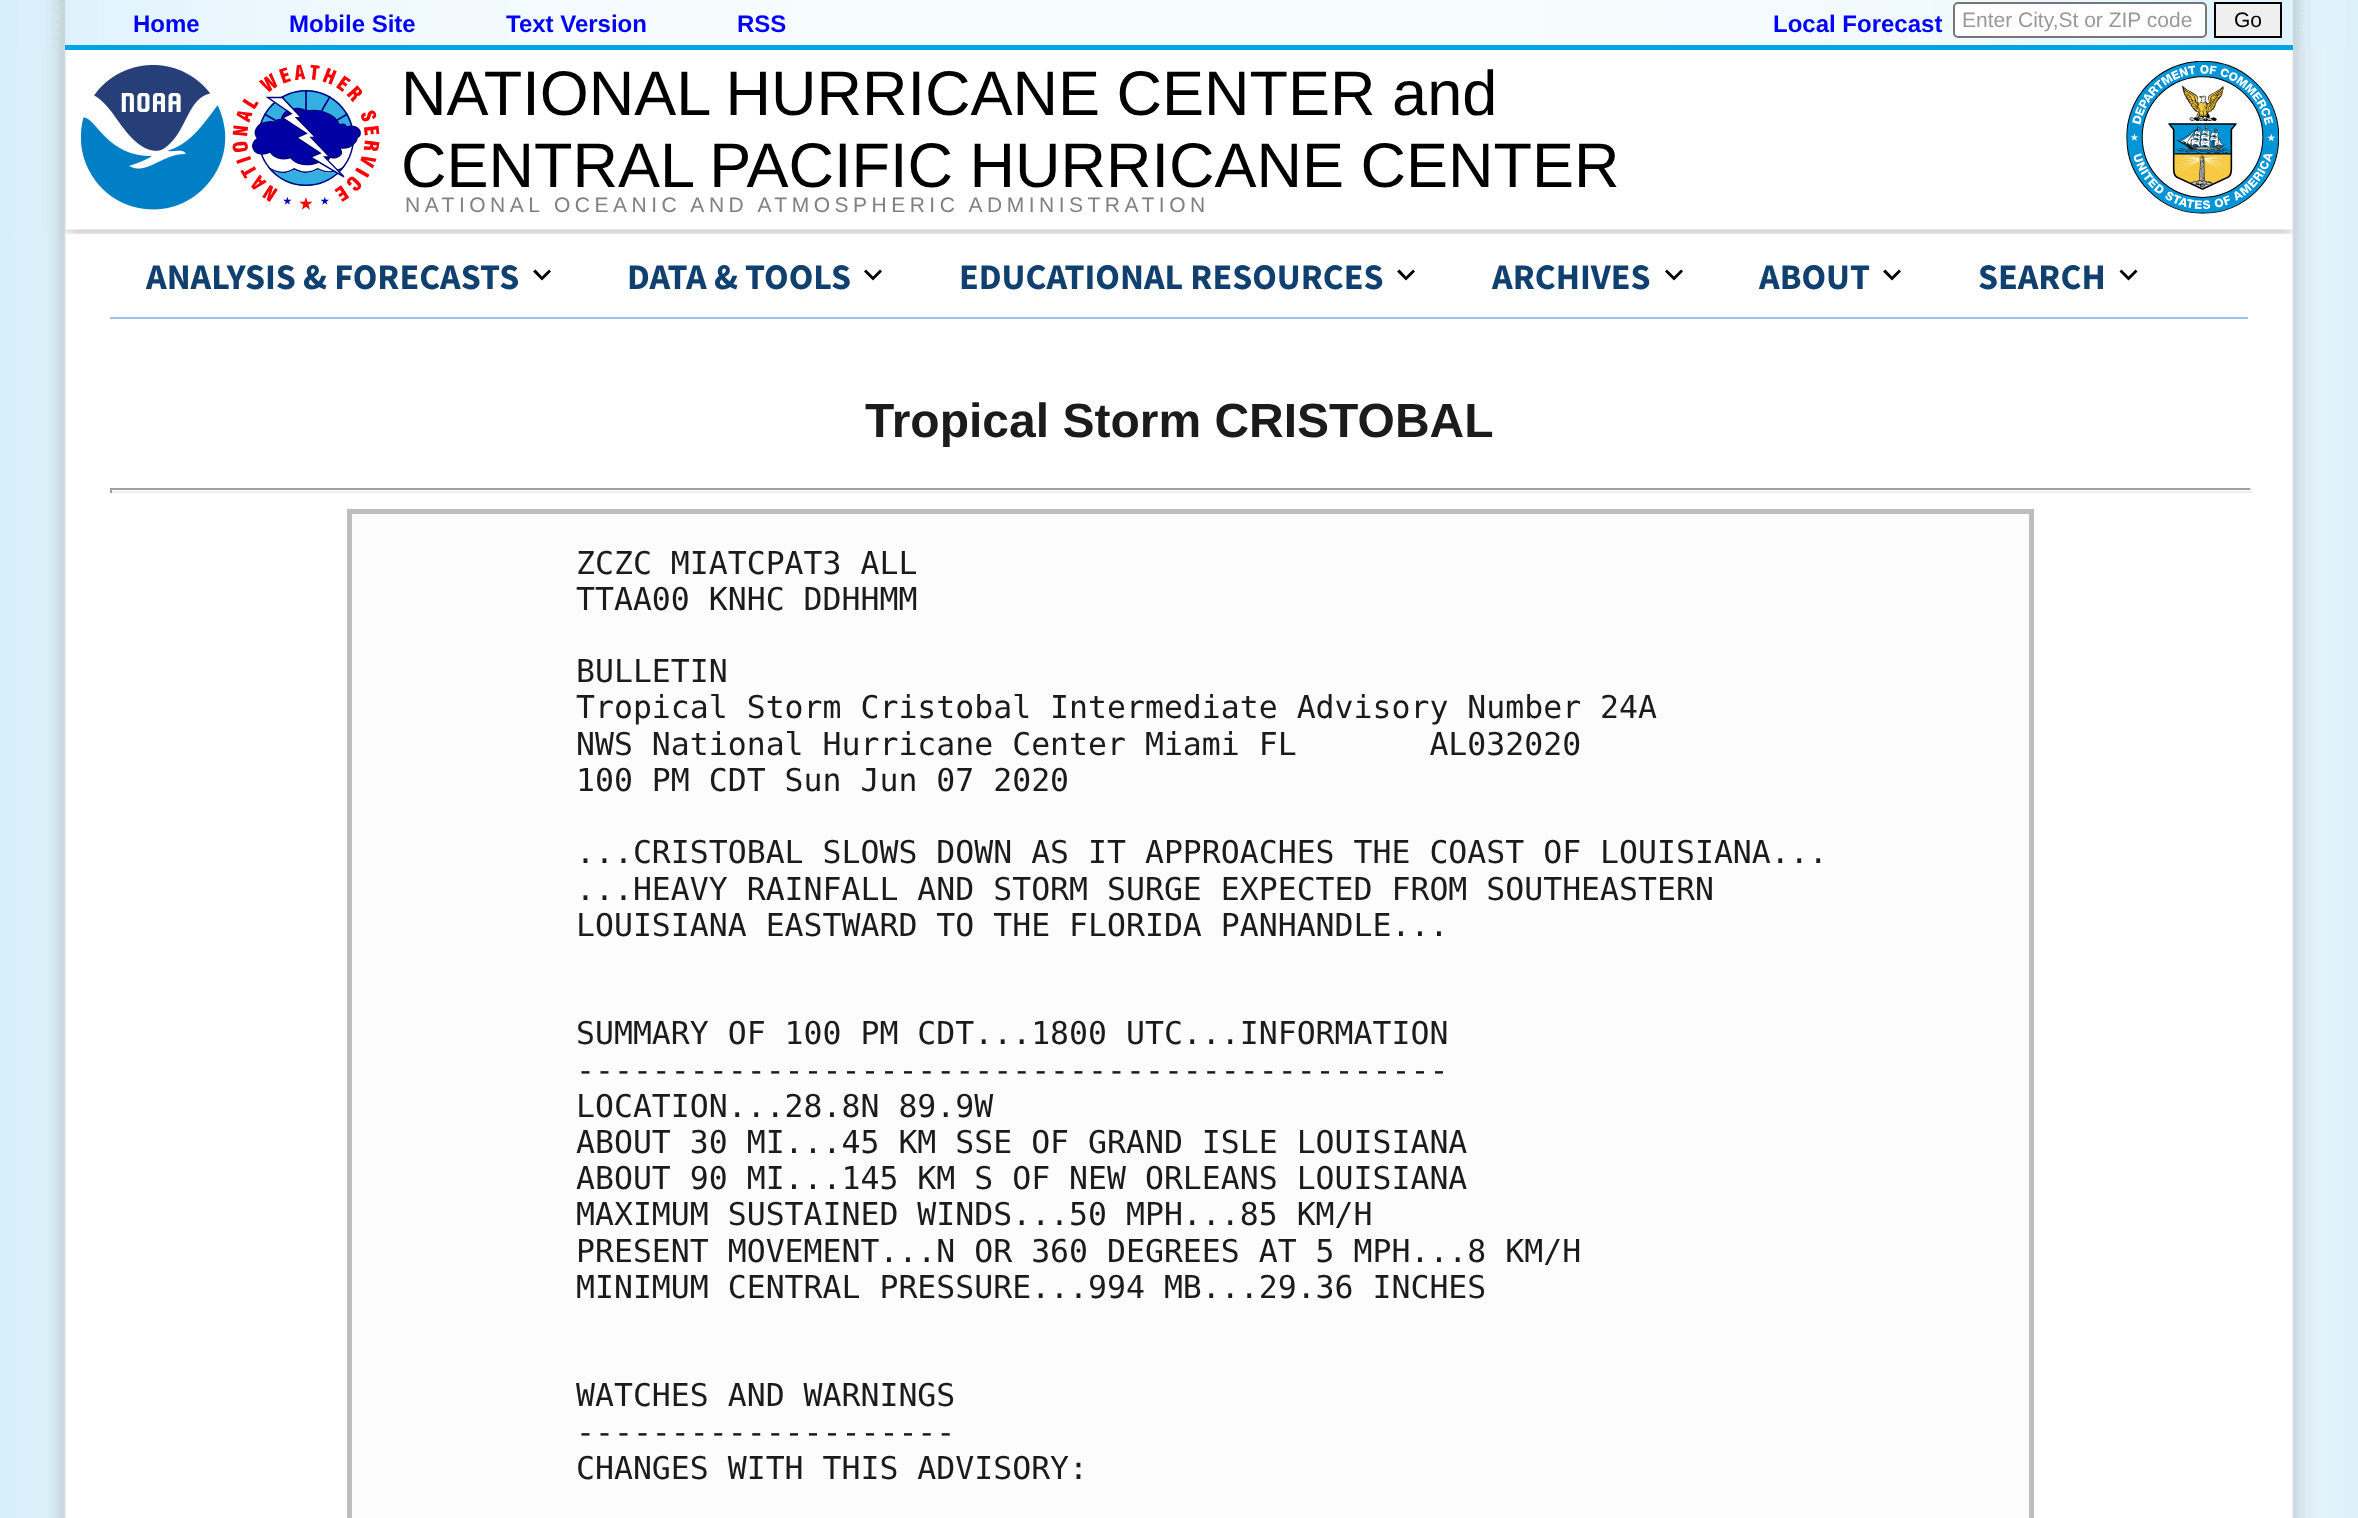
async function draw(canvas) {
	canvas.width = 2358;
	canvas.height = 1518;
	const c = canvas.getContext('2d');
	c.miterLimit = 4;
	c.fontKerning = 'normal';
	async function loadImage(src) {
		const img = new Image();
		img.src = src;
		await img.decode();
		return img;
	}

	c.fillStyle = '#fff';
	c.fillRect(0, 0, 2358, 1518);
	c.drawImage(await loadImage('img3.png'), 0, 49, 2358, 181);
	c.drawImage(await loadImage('img1.png'), 0, 0, 2358, 50);
	c.drawImage(await loadImage('img2.png'), 65, 0, 2228, 45);
	c.drawImage(await loadImage('img4.png'), 0, 49, 2358, 181);
	c.fillStyle = '#00a3e3';
	c.fillRect(65, 45, 2228, 5);
	c.font = 'bold 24px Liberation Sans';
	c.fillStyle = '#00f';
	for (const [text, x, y] of [
		['Home', 133, 32],
		['Mobile Site', 289, 32],
		['Text Version', 506, 32],
		['RSS', 737, 32],
		['Local Forecast', 1773, 32],
	]) {
		c.fillText(text, x, y);
	}
	c.fillStyle = '#fff';
	c.beginPath();
	c.roundRect(1954, 3, 252, 34, 4);
	c.fill();
	c.strokeStyle = '#767676';
	c.lineWidth = 2;
	c.stroke();
	c.font = '21px Liberation Sans';
	c.fillStyle = '#999';
	c.fillText('Enter City,St or ZIP code', 1962, 27);
	c.fillStyle = '#efefef';
	c.beginPath();
	c.rect(2215, 3, 66, 34);
	c.fill();
	c.strokeStyle = '#000';
	c.stroke();
	c.fillStyle = '#000';
	c.fillText('Go', 2234, 27);
	c.drawImage(await loadImage('img5.png'), 80, 64, 146, 146);
	c.drawImage(await loadImage('img6.png'), 232, 64, 148, 146);
	c.wordSpacing = '-1px';
	c.font = '63px Liberation Sans';
	c.fillText('NATIONAL HURRICANE CENTER and', 401, 115);
	c.fillText('CENTRAL PACIFIC HURRICANE CENTER', 401, 187);
	c.drawImage(await loadImage('img7.png'), 2126, 61, 153, 153);
	c.letterSpacing = '4.5px';
	c.wordSpacing = '0px';
	c.font = '21px Liberation Sans';
	c.fillStyle = '#808080';
	c.fillText('NATIONAL OCEANIC AND ATMOSPHERIC ADMINISTRATION', 405, 212);
	c.drawImage(await loadImage('img8.png'), 0, 229, 2358, 5);
	c.drawImage(await loadImage('img9.png'), 65, 229, 2228, 5);
	c.drawImage(await loadImage('img10.png'), 0, 234, 2358, 1284);
	c.fillStyle = '#94c6ef';
	c.fillRect(110, 317, 2138, 2);
	c.letterSpacing = '0px';
	c.font = 'bold 36px Source Sans Pro';
	c.fillStyle = '#104070';
	c.fillText('ANALYSIS & FORECASTS', 146, 289);
	c.fillStyle = '#000';
	c.beginPath();
	c.moveTo(549, 269.5);
	c.lineTo(542, 276.5);
	c.lineTo(535.5, 269.5);
	c.lineTo(533, 271.5);
	c.lineTo(542, 280.5);
	c.lineTo(551, 271.5);
	c.closePath();
	c.fill();
	c.fillStyle = '#104070';
	c.fillText('DATA & TOOLS', 627, 289);
	c.fillStyle = '#000';
	c.beginPath();
	c.moveTo(880, 269.5);
	c.lineTo(873, 276.5);
	c.lineTo(866, 269.5);
	c.lineTo(864, 271.5);
	c.lineTo(873, 280.5);
	c.lineTo(882, 271.5);
	c.closePath();
	c.fill();
	c.fillStyle = '#104070';
	c.fillText('EDUCATIONAL RESOURCES', 959, 289);
	c.fillStyle = '#000';
	c.beginPath();
	c.moveTo(1413, 269.5);
	c.lineTo(1406, 276.5);
	c.lineTo(1399.5, 269.5);
	c.lineTo(1397, 271.5);
	c.lineTo(1406, 280.5);
	c.lineTo(1415, 271.5);
	c.closePath();
	c.fill();
	c.fillStyle = '#104070';
	c.fillText('ARCHIVES', 1492, 289);
	c.fillStyle = '#000';
	c.beginPath();
	c.moveTo(1681, 269.5);
	c.lineTo(1674, 276.5);
	c.lineTo(1667, 269.5);
	c.lineTo(1665, 271.5);
	c.lineTo(1674, 280.5);
	c.lineTo(1683, 271.5);
	c.closePath();
	c.fill();
	c.fillStyle = '#104070';
	c.fillText('ABOUT', 1759, 289);
	c.fillStyle = '#000';
	c.beginPath();
	c.moveTo(1899, 269.5);
	c.lineTo(1892, 276.5);
	c.lineTo(1885.5, 269.5);
	c.lineTo(1883, 271.5);
	c.lineTo(1892, 280.5);
	c.lineTo(1901, 271.5);
	c.closePath();
	c.fill();
	c.fillStyle = '#104070';
	c.fillText('SEARCH', 1978, 289);
	c.fillStyle = '#000';
	c.beginPath();
	c.moveTo(2135.5, 269.5);
	c.lineTo(2128.5, 276.5);
	c.lineTo(2121.5, 269.5);
	c.lineTo(2119.5, 271.5);
	c.lineTo(2128.5, 280.5);
	c.lineTo(2137.5, 271.5);
	c.closePath();
	c.fill();
	c.font = 'bold 48px Liberation Sans';
	c.fillStyle = '#1b1b1b';
	c.fillText('Tropical Storm CRISTOBAL', 865, 437);
	for (const [x, y, w, h, color] of [
		[110, 488, 2142, 2, '#9f9f9f'],
		[2250, 488, 2, 5, '#eee'],
		[110, 491, 2142, 2, '#eee'],
		[110, 488, 2, 5, '#9f9f9f'],
	]) {
		c.fillStyle = color;
		c.fillRect(x, y, w, h);
	}
	c.fillStyle = '#fcfcfc';
	c.beginPath();
	c.rect(349.5, 511.5, 1682, 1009);
	c.fill();
	c.strokeStyle = '#bdbdbd';
	c.lineWidth = 5;
	c.stroke();
	c.font = '31.5px DejaVu Sans Mono';
	c.fillStyle = '#1b1b1b';
	for (const [text, x, y] of [
		['ZCZC MIATCPAT3 ALL', 576, 574],
		['TTAA00 KNHC DDHHMM', 576, 610],
		['BULLETIN', 576, 682],
		['Tropical Storm Cristobal Intermediate Advisory Number 24A', 576, 718],
		['NWS National Hurricane Center Miami FL       AL032020', 576, 755],
		['100 PM CDT Sun Jun 07 2020', 576, 791],
		['...CRISTOBAL SLOWS DOWN AS IT APPROACHES THE COAST OF LOUISIANA...', 576, 863],
		['...HEAVY RAINFALL AND STORM SURGE EXPECTED FROM SOUTHEASTERN', 576, 900],
		['LOUISIANA EASTWARD TO THE FLORIDA PANHANDLE...', 576, 936],
		['SUMMARY OF 100 PM CDT...1800 UTC...INFORMATION', 576, 1044],
		['----------------------------------------------', 576, 1081],
		['LOCATION...28.8N 89.9W', 576, 1117],
		['ABOUT 30 MI...45 KM SSE OF GRAND ISLE LOUISIANA', 576, 1153],
		['ABOUT 90 MI...145 KM S OF NEW ORLEANS LOUISIANA', 576, 1189],
		['MAXIMUM SUSTAINED WINDS...50 MPH...85 KM/H', 576, 1225],
		['PRESENT MOVEMENT...N OR 360 DEGREES AT 5 MPH...8 KM/H', 576, 1262],
		['MINIMUM CENTRAL PRESSURE...994 MB...29.36 INCHES', 576, 1298],
		['WATCHES AND WARNINGS', 576, 1406],
		['--------------------', 576, 1443],
		['CHANGES WITH THIS ADVISORY:', 576, 1479],
	]) {
		c.fillText(text, x, y);
	}
}

draw(document.querySelector('canvas'));
